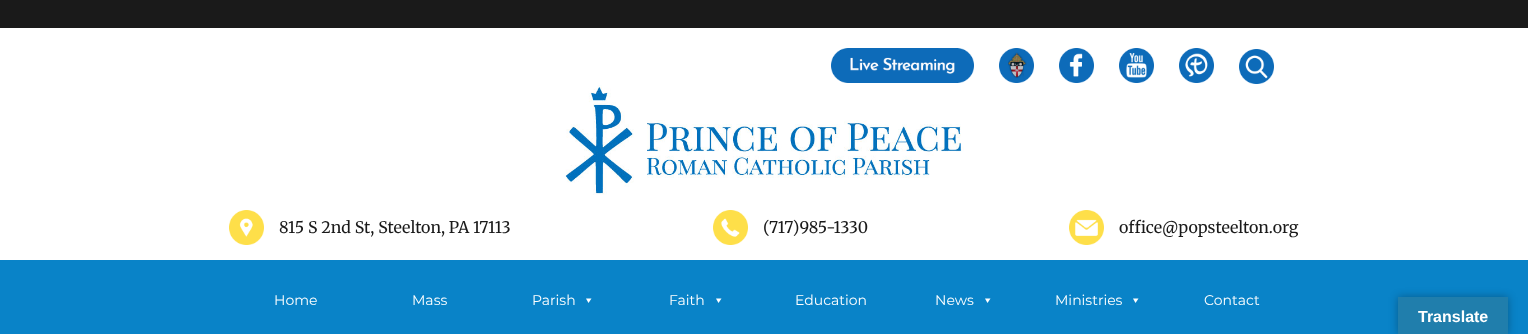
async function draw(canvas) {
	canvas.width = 1528;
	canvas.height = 334;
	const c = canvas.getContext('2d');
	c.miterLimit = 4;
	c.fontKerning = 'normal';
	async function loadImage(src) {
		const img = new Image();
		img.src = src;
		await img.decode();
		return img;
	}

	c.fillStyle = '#1a1a1a';
	c.fillRect(0, 0, 1528, 334);
	c.fillStyle = '#fff';
	c.fillRect(0, 28, 1528, 232);
	c.drawImage(await loadImage('img1.png'), 831, 48, 143, 35);
	c.drawImage(await loadImage('img2.png'), 999, 48, 35, 35);
	c.drawImage(await loadImage('img3.png'), 1059, 48, 35, 35);
	c.drawImage(await loadImage('img4.png'), 1119, 48, 35, 35);
	c.drawImage(await loadImage('img5.png'), 1179, 48, 35, 35);
	c.drawImage(await loadImage('img6.png'), 1239, 49, 35, 35);
	c.drawImage(await loadImage('img7.png'), 564, 85, 400, 110);
	c.drawImage(await loadImage('img8.png'), 229, 210, 35, 35);
	c.font = '16px Merriweather';
	c.fillStyle = '#1a1a1a';
	c.fillText('815 S 2nd St, Steelton, PA 17113', 279, 233);
	c.drawImage(await loadImage('img9.png'), 713, 210, 35, 35);
	c.fillText('(717)985-1330', 763, 233);
	c.drawImage(await loadImage('img10.png'), 1069, 210, 35, 35);
	c.fillText('office@popsteelton.org', 1119, 233);
	c.fillStyle = '#0983c8';
	c.fillRect(0, 260, 1528, 74);
	c.font = '100 14px Montserrat';
	c.fillStyle = '#fff';
	for (const [text, x, y] of [
		['Home', 274, 305],
		['Mass', 412, 305],
		['Parish', 532, 305],
	]) {
		c.fillText(text, x, y);
	}
	c.beginPath();
	c.moveTo(591.5, 298.5);
	c.lineTo(588.5, 303);
	c.lineTo(586, 298.5);
	c.closePath();
	c.fill();
	c.fillText('Faith', 669, 305);
	c.beginPath();
	c.moveTo(721.5, 298.5);
	c.lineTo(718.5, 303);
	c.lineTo(716, 298.5);
	c.closePath();
	c.fill();
	c.fillText('Education', 795, 305);
	c.fillText('News', 935, 305);
	c.beginPath();
	c.moveTo(990.5, 298.5);
	c.lineTo(987.5, 303);
	c.lineTo(985, 298.5);
	c.closePath();
	c.fill();
	c.fillText('Ministries', 1055, 305);
	c.beginPath();
	c.moveTo(1138.5, 298.5);
	c.lineTo(1135.5, 303);
	c.lineTo(1133, 298.5);
	c.closePath();
	c.fill();
	c.fillText('Contact', 1204, 305);
	c.fillStyle = '#0000004d';
	c.filter = 'blur(4.5px)';
	c.beginPath();
	c.rect(1398, 297, 110, 37);
	c.fill();
	c.filter = 'none';
	c.fillStyle = '#207eac';
	c.fillRect(1398, 297, 110, 37);
	c.font = 'bold 16px Liberation Sans';
	c.fillStyle = '#fff';
	c.fillText('Translate', 1418, 322);
}

draw(document.querySelector('canvas'));
